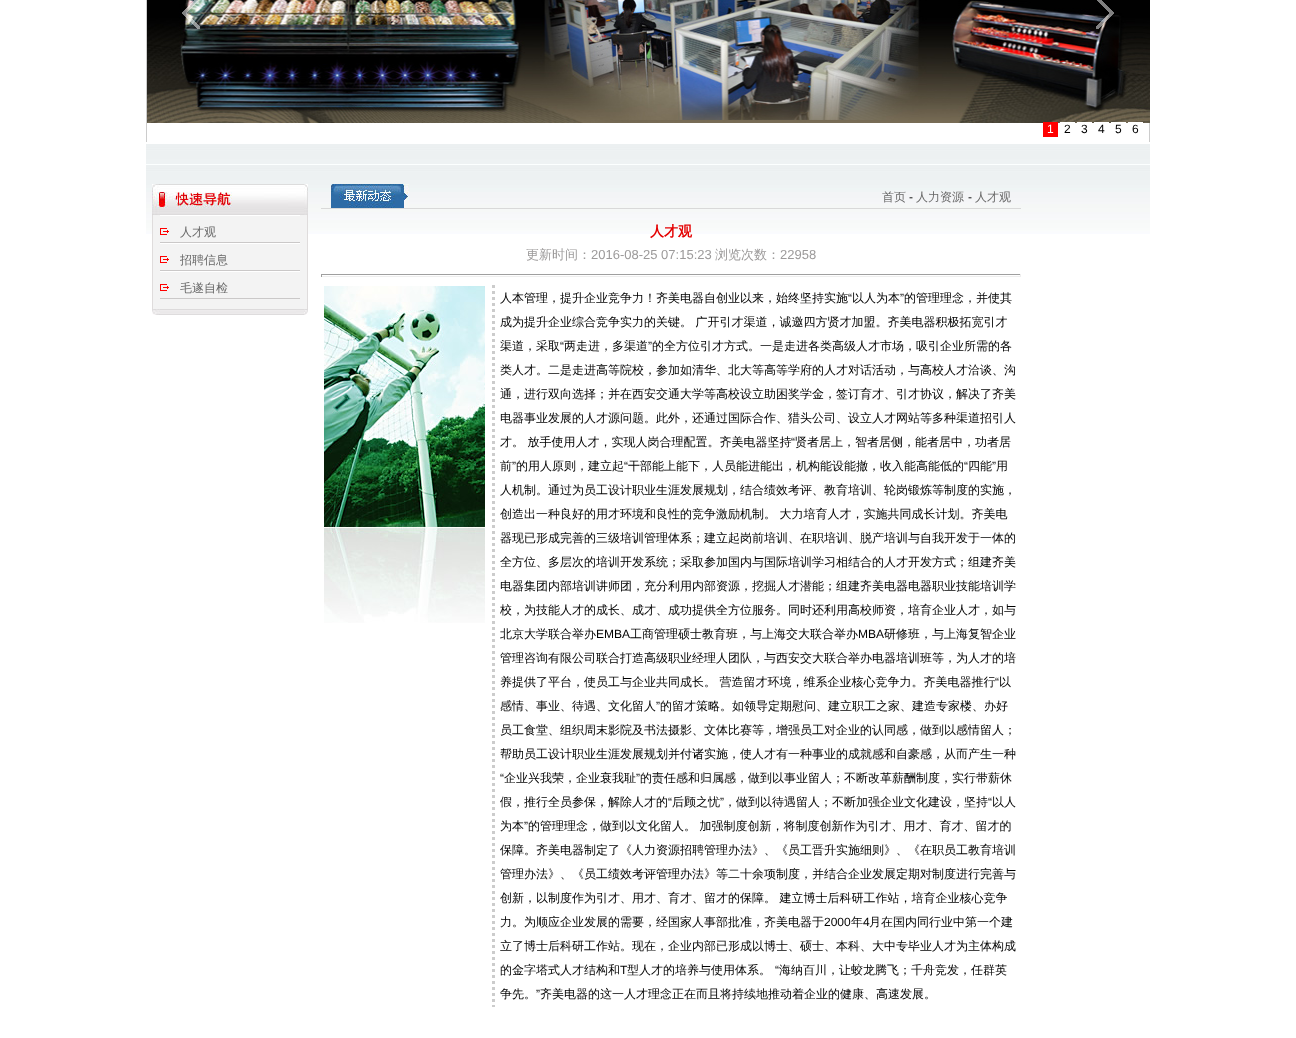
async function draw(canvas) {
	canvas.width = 1296;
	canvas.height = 1038;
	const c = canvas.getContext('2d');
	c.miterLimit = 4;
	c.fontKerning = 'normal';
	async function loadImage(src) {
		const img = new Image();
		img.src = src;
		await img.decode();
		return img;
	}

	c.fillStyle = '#fff';
	c.fillRect(0, 0, 1296, 1038);
	c.save();
	c.beginPath();
	c.rect(146, 0, 1004, 142);
	c.clip();
	c.strokeStyle = '#ccc';
	c.strokeRect(146.5, -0.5, 1003, 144);
	c.restore();
	c.drawImage(await loadImage('img1.png'), 147, 0, 1003, 123);
	c.drawImage(await loadImage('img2.png'), 182, 0, 18, 29);
	c.drawImage(await loadImage('img3.png'), 1096, 0, 18, 29);
	c.fillStyle = '#f00';
	c.fillRect(1043, 122, 15, 15);
	c.font = '12px Liberation Sans';
	c.fillStyle = '#fff';
	c.fillText('1', 1047, 133);
	c.fillRect(1060, 122, 15, 1);
	c.fillStyle = '#000';
	c.fillText('2', 1064, 133);
	c.fillStyle = '#fff';
	c.fillRect(1077, 122, 15, 1);
	c.fillStyle = '#000';
	c.fillText('3', 1081, 133);
	c.fillStyle = '#fff';
	c.fillRect(1094, 122, 15, 1);
	c.fillStyle = '#000';
	c.fillText('4', 1098, 133);
	c.fillStyle = '#fff';
	c.fillRect(1111, 122, 15, 1);
	c.fillStyle = '#000';
	c.fillText('5', 1115, 133);
	c.fillStyle = '#fff';
	c.fillRect(1128, 122, 15, 1);
	c.fillStyle = '#000';
	c.fillText('6', 1132, 133);
	c.drawImage(await loadImage('img4.png'), 146, 144, 1004, 20);
	c.drawImage(await loadImage('img5.png'), 146, 164, 1004, 70);
	c.drawImage(await loadImage('img6.png'), 152, 184, 156, 31);
	for (const [x, y, w, h, color] of [
		[153, 215, 154, 94, '#f3f3f3'],
		[307, 215, 1, 94, '#dfdcdc'],
		[152, 215, 1, 94, '#dfdcdc'],
	]) {
		c.fillStyle = color;
		c.fillRect(x, y, w, h);
	}
	c.drawImage(await loadImage('img7.png'), 160, 228, 9, 7);
	c.fillStyle = '#fff';
	c.fillRect(160, 215, 140, 1);
	c.fillStyle = '#cac8c8';
	c.fillRect(160, 242, 140, 1);
	c.font = '500 12px WenQuanYi Zen Hei';
	c.fillStyle = '#696969';
	c.fillText('人才观', 180, 236);
	c.drawImage(await loadImage('img7.png'), 160, 256, 9, 7);
	c.fillStyle = '#fff';
	c.fillRect(160, 243, 140, 1);
	c.fillStyle = '#cac8c8';
	c.fillRect(160, 270, 140, 1);
	c.fillStyle = '#696969';
	c.fillText('招聘信息', 180, 264);
	c.drawImage(await loadImage('img7.png'), 160, 284, 9, 7);
	c.fillStyle = '#fff';
	c.fillRect(160, 271, 140, 1);
	c.fillStyle = '#cac8c8';
	c.fillRect(160, 298, 140, 1);
	c.fillStyle = '#696969';
	c.fillText('毛遂自检', 180, 292);
	c.drawImage(await loadImage('img8.png'), 152, 309, 156, 6);
	c.drawImage(await loadImage('img9.png'), 331, 184, 78, 24);
	c.fillStyle = '#d9d9d9';
	c.fillRect(321, 208, 700, 1);
	c.fillStyle = '#696969';
	c.fillText('首页', 882, 201);
	c.font = '12px Liberation Sans';
	c.fillStyle = '#000';
	c.fillText('-', 909, 201);
	c.font = '500 12px WenQuanYi Zen Hei';
	c.fillStyle = '#696969';
	c.fillText('人力资源', 916, 201);
	c.font = '12px Liberation Sans';
	c.fillStyle = '#000';
	c.fillText('-', 968, 201);
	c.font = '500 12px WenQuanYi Zen Hei';
	c.fillStyle = '#696969';
	c.fillText('人才观', 975, 201);
	c.font = 'bold 14px WenQuanYi Zen Hei';
	c.fillStyle = '#e40101';
	c.fillText('人才观', 650, 236);
	c.font = '500 13px WenQuanYi Zen Hei';
	c.fillStyle = '#9c9a9a';
	c.fillText('更新时间：', 526, 259);
	c.font = '13px Liberation Sans';
	c.fillText('2016-08-25 07:15:23', 591, 259);
	c.font = '500 13px WenQuanYi Zen Hei';
	c.fillText('浏览次数：', 715, 259);
	c.font = '13px Liberation Sans';
	c.fillText('22958', 780, 259);
	for (const [x, y, w, h, color] of [
		[321, 274, 700, 1, '#9f9f9f'],
		[1020, 274, 1, 3, '#eee'],
		[321, 276, 700, 1, '#eee'],
		[321, 274, 1, 3, '#9f9f9f'],
	]) {
		c.fillStyle = color;
		c.fillRect(x, y, w, h);
	}
	c.drawImage(await loadImage('img10.png'), 324, 286, 161, 337);
	c.beginPath();
	c.moveTo(493.5, 285);
	c.lineTo(493.5, 1007);
	c.strokeStyle = '#ccc';
	c.lineWidth = 3;
	c.setLineDash([3, 3]);
	c.stroke();
	c.font = '500 12px WenQuanYi Zen Hei';
	c.fillStyle = '#000';
	c.fillText('人本管理，提升企业竞争力！齐美电器自创业以来，始终坚持实施', 500, 302);
	c.font = '12px Liberation Sans';
	c.fillText('“', 848, 302);
	c.font = '500 12px WenQuanYi Zen Hei';
	c.fillText('以人为本', 852, 302);
	c.font = '12px Liberation Sans';
	c.fillText('”', 900, 302);
	c.font = '500 12px WenQuanYi Zen Hei';
	for (const [text, x, y] of [
		['的管理理念，并使其', 904, 302],
		['成为提升企业综合竞争实力的关键。 广开引才渠道，诚邀四方贤才加盟。齐美电器积极拓宽引才', 500, 326],
		['渠道，采取', 500, 350],
	]) {
		c.fillText(text, x, y);
	}
	c.font = '12px Liberation Sans';
	c.fillText('“', 560, 350);
	c.font = '500 12px WenQuanYi Zen Hei';
	c.fillText('两走进，多渠道', 564, 350);
	c.font = '12px Liberation Sans';
	c.fillText('”', 648, 350);
	c.font = '500 12px WenQuanYi Zen Hei';
	for (const [text, x, y] of [
		['的全方位引才方式。一是走进各类高级人才市场，吸引企业所需的各', 652, 350],
		['类人才。二是走进高等院校，参加如清华、北大等高等学府的人才对话活动，与高校人才洽谈、沟', 500, 374],
		['通，进行双向选择；并在西安交通大学等高校设立助困奖学金，签订育才、引才协议，解决了齐美', 500, 398],
		['电器事业发展的人才源问题。此外，还通过国际合作、猎头公司、设立人才网站等多种渠道招引人', 500, 422],
		['才。 放手使用人才，实现人岗合理配置。齐美电器坚持', 500, 446],
	]) {
		c.fillText(text, x, y);
	}
	c.font = '12px Liberation Sans';
	c.fillText('“', 791, 446);
	c.font = '500 12px WenQuanYi Zen Hei';
	c.fillText('贤者居上，智者居侧，能者居中，功者居', 795, 446);
	c.fillText('前', 500, 470);
	c.font = '12px Liberation Sans';
	c.fillText('”', 512, 470);
	c.font = '500 12px WenQuanYi Zen Hei';
	c.fillText('的用人原则，建立起', 516, 470);
	c.font = '12px Liberation Sans';
	c.fillText('“', 624, 470);
	c.font = '500 12px WenQuanYi Zen Hei';
	c.fillText('干部能上能下，人员能进能出，机构能设能撤，收入能高能低的', 628, 470);
	c.font = '12px Liberation Sans';
	c.fillText('“', 964, 470);
	c.font = '500 12px WenQuanYi Zen Hei';
	c.fillText('四能', 968, 470);
	c.font = '12px Liberation Sans';
	c.fillText('”', 992, 470);
	c.font = '500 12px WenQuanYi Zen Hei';
	for (const [text, x, y] of [
		['用', 996, 470],
		['人机制。通过为员工设计职业生涯发展规划，结合绩效考评、教育培训、轮岗锻炼等制度的实施，', 500, 494],
		['创造出一种良好的用才环境和良性的竞争激励机制。 大力培育人才，实施共同成长计划。齐美电', 500, 518],
		['器现已形成完善的三级培训管理体系；建立起岗前培训、在职培训、脱产培训与自我开发于一体的', 500, 542],
		['全方位、多层次的培训开发系统；采取参加国内与国际培训学习相结合的人才开发方式；组建齐美', 500, 566],
		['电器集团内部培训讲师团，充分利用内部资源，挖掘人才潜能；组建齐美电器电器职业技能培训学', 500, 590],
		['校，为技能人才的成长、成才、成功提供全方位服务。同时还利用高校师资，培育企业人才，如与', 500, 614],
		['北京大学联合举办', 500, 638],
	]) {
		c.fillText(text, x, y);
	}
	c.font = '12px Liberation Sans';
	c.fillText('EMBA', 596, 638);
	c.font = '500 12px WenQuanYi Zen Hei';
	c.fillText('工商管理硕士教育班，与上海交大联合举办', 630, 638);
	c.font = '12px Liberation Sans';
	c.fillText('MBA', 858, 638);
	c.font = '500 12px WenQuanYi Zen Hei';
	for (const [text, x, y] of [
		['研修班，与上海复智企业', 884, 638],
		['管理咨询有限公司联合打造高级职业经理人团队，与西安交大联合举办电器培训班等，为人才的培', 500, 662],
		['养提供了平台，使员工与企业共同成长。 营造留才环境，维系企业核心竞争力。齐美电器推行', 500, 686],
	]) {
		c.fillText(text, x, y);
	}
	c.font = '12px Liberation Sans';
	c.fillText('“', 995, 686);
	c.font = '500 12px WenQuanYi Zen Hei';
	c.fillText('以', 999, 686);
	c.fillText('感情、事业、待遇、文化留人', 500, 710);
	c.font = '12px Liberation Sans';
	c.fillText('”', 656, 710);
	c.font = '500 12px WenQuanYi Zen Hei';
	for (const [text, x, y] of [
		['的留才策略。如领导定期慰问、建立职工之家、建造专家楼、办好', 660, 710],
		['员工食堂、组织周末影院及书法摄影、文体比赛等，增强员工对企业的认同感，做到以感情留人；', 500, 734],
		['帮助员工设计职业生涯发展规划并付诸实施，使人才有一种事业的成就感和自豪感，从而产生一种', 500, 758],
	]) {
		c.fillText(text, x, y);
	}
	c.font = '12px Liberation Sans';
	c.fillText('“', 500, 782);
	c.font = '500 12px WenQuanYi Zen Hei';
	c.fillText('企业兴我荣，企业衰我耻', 504, 782);
	c.font = '12px Liberation Sans';
	c.fillText('”', 636, 782);
	c.font = '500 12px WenQuanYi Zen Hei';
	c.fillText('的责任感和归属感，做到以事业留人；不断改革薪酬制度，实行带薪休', 640, 782);
	c.fillText('假，推行全员参保，解除人才的', 500, 806);
	c.font = '12px Liberation Sans';
	c.fillText('“', 668, 806);
	c.font = '500 12px WenQuanYi Zen Hei';
	c.fillText('后顾之忧', 672, 806);
	c.font = '12px Liberation Sans';
	c.fillText('”', 720, 806);
	c.font = '500 12px WenQuanYi Zen Hei';
	c.fillText('，做到以待遇留人；不断加强企业文化建设，坚持', 724, 806);
	c.font = '12px Liberation Sans';
	c.fillText('“', 988, 806);
	c.font = '500 12px WenQuanYi Zen Hei';
	c.fillText('以人', 992, 806);
	c.fillText('为本', 500, 830);
	c.font = '12px Liberation Sans';
	c.fillText('”', 524, 830);
	c.font = '500 12px WenQuanYi Zen Hei';
	for (const [text, x, y] of [
		['的管理理念，做到以文化留人。 加强制度创新，将制度创新作为引才、用才、育才、留才的', 528, 830],
		['保障。齐美电器制定了《人力资源招聘管理办法》、《员工晋升实施细则》、《在职员工教育培训', 500, 854],
		['管理办法》、《员工绩效考评管理办法》等二十余项制度，并结合企业发展定期对制度进行完善与', 500, 878],
		['创新，以制度作为引才、用才、育才、留才的保障。 建立博士后科研工作站，培育企业核心竞争', 500, 902],
		['力。为顺应企业发展的需要，经国家人事部批准，齐美电器于', 500, 926],
	]) {
		c.fillText(text, x, y);
	}
	c.font = '12px Liberation Sans';
	c.fillText('2000', 824, 926);
	c.font = '500 12px WenQuanYi Zen Hei';
	c.fillText('年', 851, 926);
	c.font = '12px Liberation Sans';
	c.fillText('4', 863, 926);
	c.font = '500 12px WenQuanYi Zen Hei';
	for (const [text, x, y] of [
		['月在国内同行业中第一个建', 869, 926],
		['立了博士后科研工作站。现在，企业内部已形成以博士、硕士、本科、大中专毕业人才为主体构成', 500, 950],
		['的金字塔式人才结构和', 500, 974],
	]) {
		c.fillText(text, x, y);
	}
	c.font = '12px Liberation Sans';
	c.fillText('T', 620, 974);
	c.font = '500 12px WenQuanYi Zen Hei';
	c.fillText('型人才的培养与使用体系。', 627, 974);
	c.font = '12px Liberation Sans';
	c.fillText('“', 775, 974);
	c.font = '500 12px WenQuanYi Zen Hei';
	c.fillText('海纳百川，让蛟龙腾飞；千舟竞发，任群英', 779, 974);
	c.fillText('争先。', 500, 998);
	c.font = '12px Liberation Sans';
	c.fillText('”', 536, 998);
	c.font = '500 12px WenQuanYi Zen Hei';
	c.fillText('齐美电器的这一人才理念正在而且将持续地推动着企业的健康、高速发展。', 540, 998);
}

draw(document.querySelector('canvas'));
